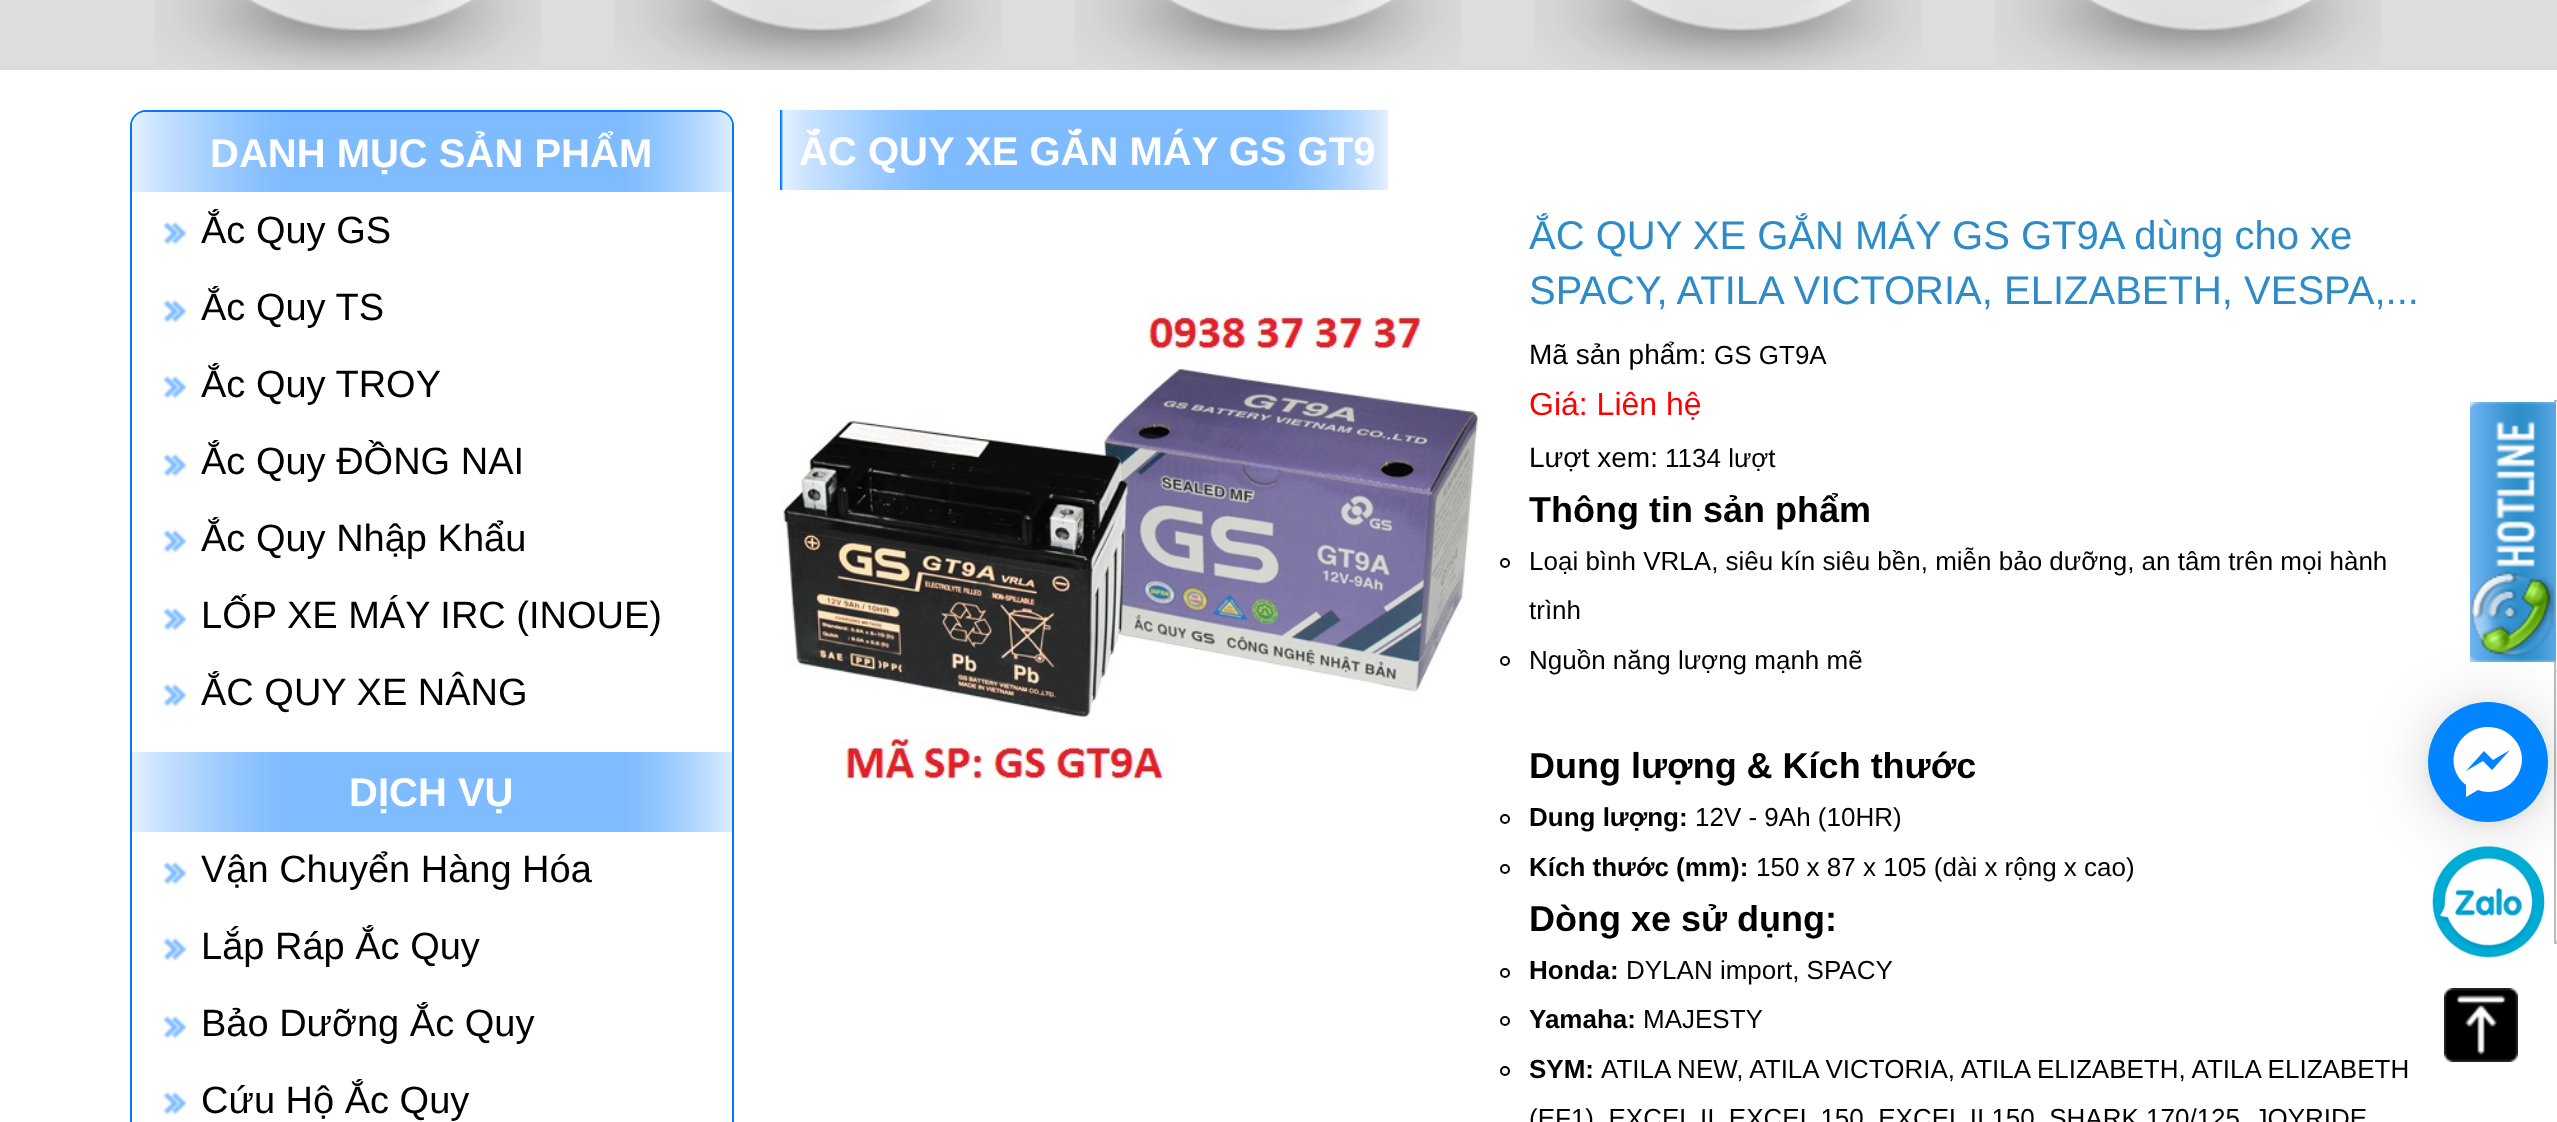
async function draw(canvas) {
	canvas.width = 2557;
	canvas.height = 1122;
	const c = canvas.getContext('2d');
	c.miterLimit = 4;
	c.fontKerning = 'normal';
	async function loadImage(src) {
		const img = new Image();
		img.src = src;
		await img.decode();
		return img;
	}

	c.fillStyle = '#fff';
	c.fillRect(0, 0, 2557, 1122);
	c.fillStyle = '#dedcdc';
	c.fillRect(0, 0, 2557, 70);
	c.drawImage(await loadImage('img1.png'), 155, 0, 386, 70);
	c.drawImage(await loadImage('img1.png'), 615, 0, 386, 70);
	c.drawImage(await loadImage('img1.png'), 1075, 0, 386, 70);
	c.drawImage(await loadImage('img1.png'), 1535, 0, 386, 70);
	c.drawImage(await loadImage('img1.png'), 1995, 0, 386, 70);
	c.beginPath();
	c.roundRect(131, 111, 602, 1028, 15);
	c.strokeStyle = '#0079ff';
	c.lineWidth = 2;
	c.stroke();
	c.drawImage(await loadImage('img2.png'), 132, 112, 600, 80);
	c.font = 'bold 40px Liberation Sans';
	c.fillStyle = '#fff';
	c.fillText('DANH MỤC SẢN PHẨM', 210, 167);
	c.drawImage(await loadImage('img3.png'), 163, 221, 23, 24);
	c.font = '38px Liberation Sans';
	c.fillStyle = '#000';
	c.fillText('Ắc Quy GS', 201, 243);
	c.drawImage(await loadImage('img3.png'), 163, 299, 23, 24);
	c.fillText('Ắc Quy TS', 201, 320);
	c.drawImage(await loadImage('img3.png'), 163, 375, 23, 24);
	c.fillText('Ắc Quy TROY', 201, 397);
	c.drawImage(await loadImage('img3.png'), 163, 453, 23, 24);
	c.fillText('Ắc Quy ĐỒNG NAI', 201, 474);
	c.drawImage(await loadImage('img3.png'), 163, 529, 23, 24);
	c.fillText('Ắc Quy Nhập Khẩu', 201, 551);
	c.drawImage(await loadImage('img3.png'), 163, 607, 23, 24);
	c.fillText('LỐP XE MÁY IRC (INOUE)', 201, 628);
	c.drawImage(await loadImage('img3.png'), 163, 683, 23, 24);
	c.fillText('ẮC QUY XE NÂNG', 201, 705);
	c.drawImage(await loadImage('img4.png'), 132, 752, 600, 80);
	c.font = 'bold 40px Liberation Sans';
	c.fillStyle = '#fff';
	c.fillText('DỊCH VỤ', 349, 806);
	c.drawImage(await loadImage('img3.png'), 163, 861, 23, 24);
	c.font = '38px Liberation Sans';
	c.fillStyle = '#000';
	c.fillText('Vận Chuyển Hàng Hóa', 201, 882);
	c.drawImage(await loadImage('img3.png'), 163, 937, 23, 24);
	c.fillText('Lắp Ráp Ắc Quy', 201, 959);
	c.drawImage(await loadImage('img3.png'), 163, 1015, 23, 24);
	c.fillText('Bảo Dưỡng Ắc Quy', 201, 1036);
	c.drawImage(await loadImage('img3.png'), 163, 1091, 23, 24);
	c.fillText('Cứu Hộ Ắc Quy', 201, 1113);
	c.drawImage(await loadImage('img5.png'), 780, 110, 608, 80);
	c.font = 'bold 40px Liberation Sans';
	c.fillStyle = '#fff';
	c.fillText('ẮC QUY XE GẮN MÁY GS GT9', 799, 165);
	c.drawImage(await loadImage('img6.png'), 780, 311, 700, 469);
	c.font = '40px Liberation Sans';
	c.fillStyle = '#2d8cc8';
	c.fillText('ẮC QUY XE GẮN MÁY GS GT9A dùng cho xe', 1529, 249);
	c.fillText('SPACY, ATILA VICTORIA, ELIZABETH, VESPA,...', 1529, 304);
	c.font = '28px Liberation Sans';
	c.fillStyle = '#000';
	c.fillText('Mã sản phẩm:', 1529, 364);
	c.font = '26px Liberation Sans';
	c.fillText('GS GT9A', 1714, 364);
	c.font = '32px Liberation Sans';
	c.fillStyle = '#f00';
	c.fillText('Giá: Liên hệ', 1529, 415);
	c.font = '28px Liberation Sans';
	c.fillStyle = '#000';
	c.fillText('Lượt xem:', 1529, 467);
	c.font = '26px Liberation Sans';
	c.fillText('1134 lượt', 1665, 467);
	c.font = 'bold 36px Liberation Sans';
	c.fillText('Thông tin sản phẩm', 1529, 522);
	c.beginPath();
	c.arc(1505, 563, 4, 0, 2 * Math.PI);
	c.strokeStyle = '#000';
	c.stroke();
	c.font = '26px Liberation Sans';
	c.fillText('Loại bình VRLA, siêu kín siêu bền, miễn bảo dưỡng, an tâm trên mọi hành', 1529, 570);
	c.fillText('trình', 1529, 619);
	c.beginPath();
	c.arc(1505, 661, 4, 0, 2 * Math.PI);
	c.stroke();
	c.fillText('Nguồn năng lượng mạnh mẽ', 1529, 669);
	c.font = 'bold 36px Liberation Sans';
	c.fillText('Dung lượng & Kích thước', 1529, 778);
	c.beginPath();
	c.arc(1505, 819, 4, 0, 2 * Math.PI);
	c.stroke();
	c.font = 'bold 26px Liberation Sans';
	c.fillText('Dung lượng:', 1529, 826);
	c.font = '26px Liberation Sans';
	c.fillText('12V - 9Ah (10HR)', 1695, 826);
	c.beginPath();
	c.arc(1505, 869, 4, 0, 2 * Math.PI);
	c.stroke();
	c.font = 'bold 26px Liberation Sans';
	c.fillText('Kích thước (mm):', 1529, 876);
	c.font = '26px Liberation Sans';
	c.fillText('150 x 87 x 105 (dài x rộng x cao)', 1756, 876);
	c.font = 'bold 36px Liberation Sans';
	c.fillText('Dòng xe sử dụng:', 1529, 931);
	c.beginPath();
	c.arc(1505, 973, 4, 0, 2 * Math.PI);
	c.stroke();
	c.font = 'bold 26px Liberation Sans';
	c.fillText('Honda:', 1529, 979);
	c.font = '26px Liberation Sans';
	c.fillText('DYLAN import, SPACY', 1626, 979);
	c.beginPath();
	c.arc(1505, 1021, 4, 0, 2 * Math.PI);
	c.stroke();
	c.font = 'bold 26px Liberation Sans';
	c.fillText('Yamaha:', 1529, 1028);
	c.font = '26px Liberation Sans';
	c.fillText('MAJESTY', 1643, 1028);
	c.beginPath();
	c.arc(1505, 1071, 4, 0, 2 * Math.PI);
	c.stroke();
	c.font = 'bold 26px Liberation Sans';
	c.fillText('SYM:', 1529, 1078);
	c.font = '26px Liberation Sans';
	c.fillText('ATILA NEW, ATILA VICTORIA, ATILA ELIZABETH, ATILA ELIZABETH', 1601, 1078);
	c.fillText('(EF1), EXCEL II, EXCEL 150, EXCEL II 150, SHARK 170/125, JOYRIDE', 1529, 1127);
	c.strokeStyle = '#bbb';
	c.strokeRect(2555, 401, 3, 542);
	c.drawImage(await loadImage('img7.png'), 2470, 402, 86, 260);
	c.fillStyle = '#ddd';
	c.fillRect(2556, 670, 1, 2);
	c.fillRect(2556, 940, 1, 2);
	c.fillStyle = '#00000029';
	c.filter = 'blur(32px)';
	c.beginPath();
	c.roundRect(2428, 706, 120, 120, 60);
	c.fill();
	c.filter = 'none';
	c.fillStyle = '#0000000f';
	c.filter = 'blur(6px)';
	c.beginPath();
	c.roundRect(2428, 704, 120, 120, 60);
	c.fill();
	c.filter = 'none';
	c.fillStyle = '#0084ff';
	c.beginPath();
	c.arc(2488, 762, 60, 0, 2 * Math.PI);
	c.fill();
	c.save();
	c.beginPath();
	c.roundRect(2428, 702, 120, 120, 60);
	c.clip();
	c.fillRect(2440, 714, 96, 96);
	c.restore();
	c.fillStyle = '#fff';
	c.beginPath();
	c.moveTo(2488, 727);
	c.bezierCurveTo(2457, 727, 2441, 765, 2466, 785);
	c.lineTo(2466, 797);
	c.lineTo(2478, 790);
	c.bezierCurveTo(2481, 791, 2485, 792, 2488, 792);
	c.bezierCurveTo(2507, 792, 2522, 777, 2522, 759);
	c.bezierCurveTo(2522, 742, 2507, 727, 2488, 727);
	c.closePath();
	c.moveTo(2492, 770);
	c.lineTo(2483, 761);
	c.lineTo(2466, 771);
	c.lineTo(2484, 751);
	c.lineTo(2493, 760);
	c.lineTo(2510, 750);
	c.closePath();
	c.fill();
	c.drawImage(await loadImage('img8.png'), 2432, 845, 113, 114);
	c.drawImage(await loadImage('img9.png'), 2444, 988, 74, 74);
}

draw(document.querySelector('canvas'));
